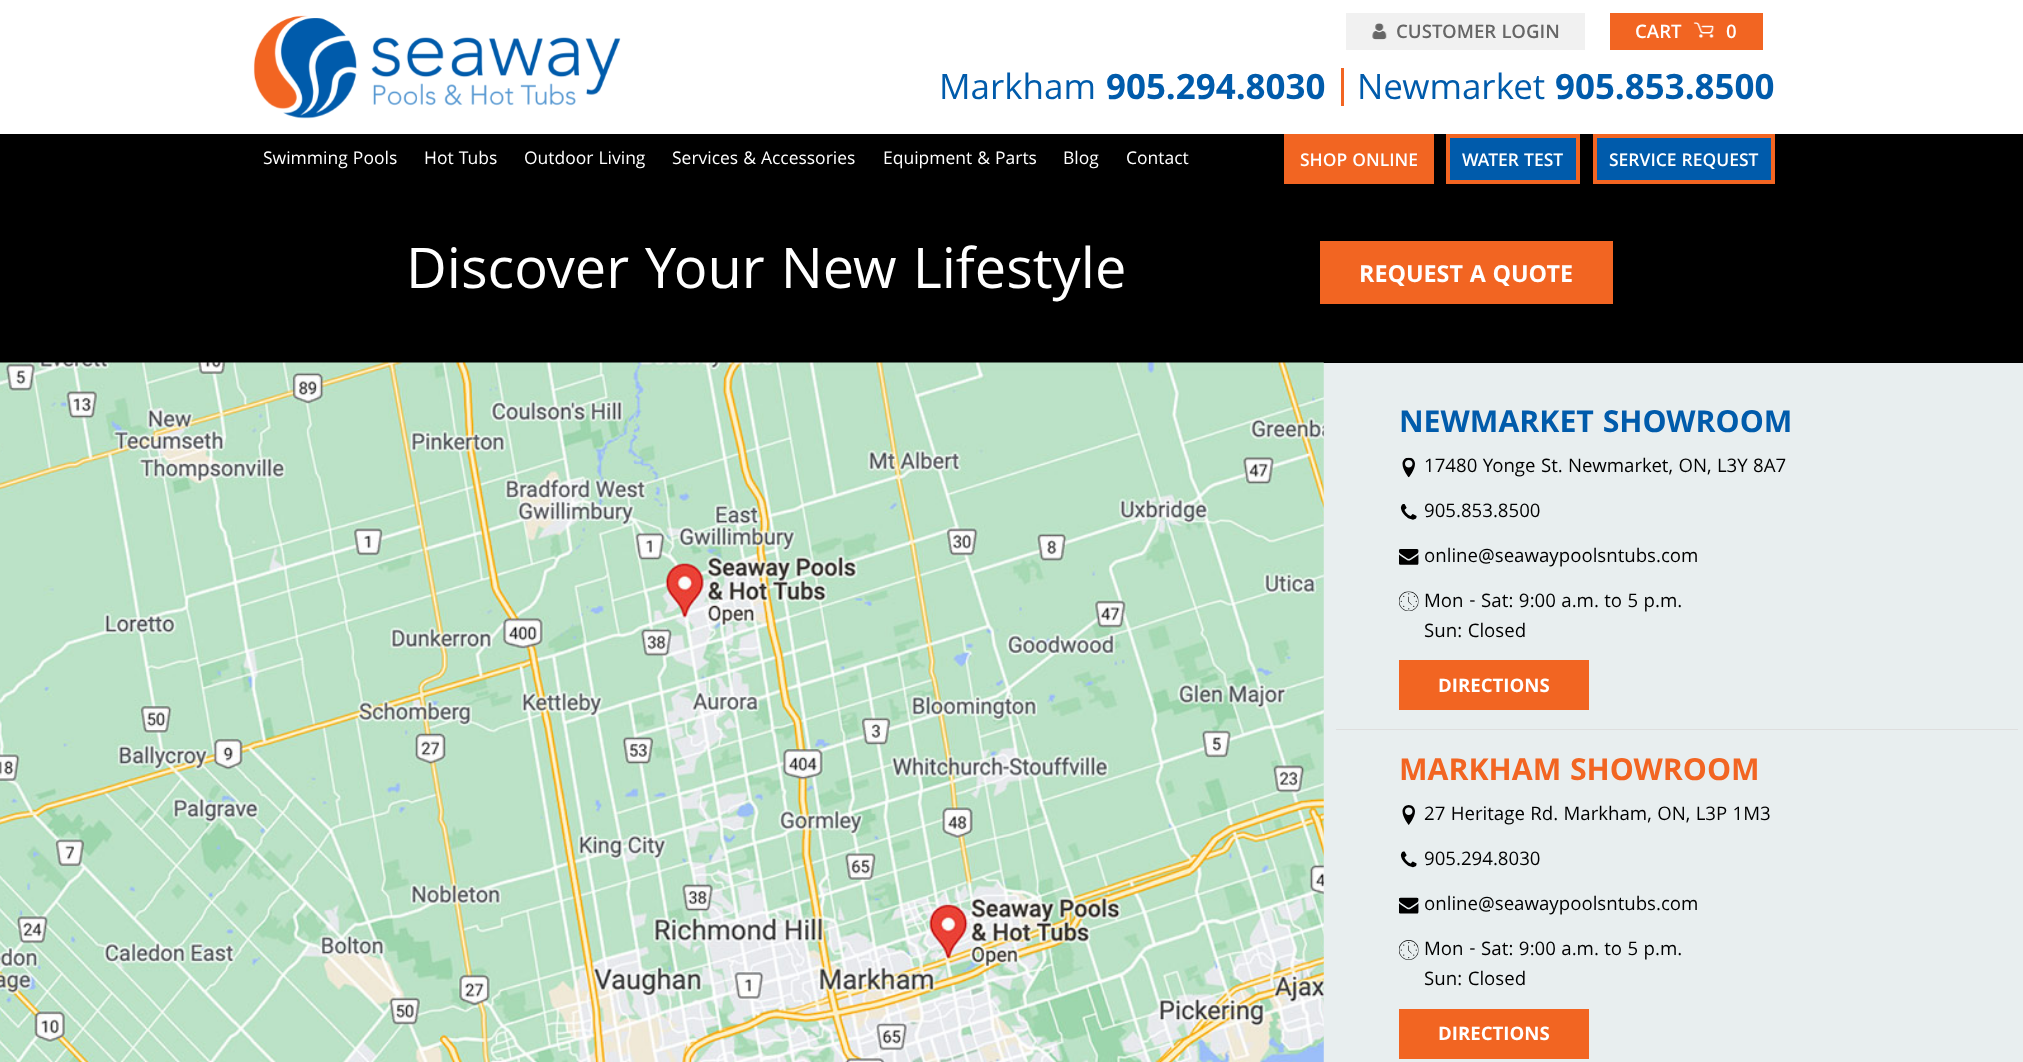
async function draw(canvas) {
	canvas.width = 2023;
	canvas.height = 1062;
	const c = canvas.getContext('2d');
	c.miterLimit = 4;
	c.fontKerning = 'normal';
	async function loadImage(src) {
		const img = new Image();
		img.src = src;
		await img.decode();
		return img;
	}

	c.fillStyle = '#fff';
	c.fillRect(0, 0, 2023, 1062);
	c.drawImage(await loadImage('img1.png'), 253, 15, 368, 104);
	c.fillStyle = '#f1f1f1';
	c.fillRect(1346, 13, 239, 37);
	c.drawImage(await loadImage('img2.png'), 1372, 23, 15, 17);
	c.font = '600 20px Khula';
	c.fillStyle = '#666';
	c.fillText('CUSTOMER LOGIN', 1396, 38);
	c.fillStyle = '#f26522';
	c.fillRect(1610, 13, 153, 37);
	c.fillStyle = '#fff';
	c.fillText('CART', 1635, 38);
	c.drawImage(await loadImage('img3.png'), 1693, 22, 22, 16);
	c.fillText('0', 1726, 38);
	c.font = '37.5px Khula';
	c.fillStyle = '#005bab';
	c.fillText('Markham', 939, 99);
	c.font = 'bold 37.5px Khula';
	c.fillText('905.294.8030', 1106, 99);
	c.fillStyle = '#f26522';
	c.fillRect(1341, 68, 3, 38);
	c.font = '37.5px Khula';
	c.fillStyle = '#005bab';
	c.fillText('Newmarket', 1357, 99);
	c.font = 'bold 37.5px Khula';
	c.fillText('905.853.8500', 1555, 99);
	c.fillStyle = '#000';
	c.fillRect(0, 134, 2023, 229);
	c.font = '18.75px Khula';
	c.fillStyle = '#fff';
	for (const [text, x, y] of [
		['Swimming Pools', 263, 164],
		['Hot Tubs', 424, 164],
		['Outdoor Living', 524, 164],
		['Services & Accessories', 672, 164],
		['Equipment & Parts', 883, 164],
		['Blog', 1063, 164],
		['Contact', 1126, 164],
	]) {
		c.fillText(text, x, y);
	}
	c.fillStyle = '#f26522';
	c.fillRect(1284, 134, 150, 50);
	c.font = '600 18.75px Khula';
	c.fillStyle = '#fff';
	c.fillText('SHOP ONLINE', 1300, 166);
	c.fillStyle = '#005bab';
	c.beginPath();
	c.rect(1448, 136, 130, 46);
	c.fill();
	c.strokeStyle = '#f26522';
	c.lineWidth = 4;
	c.stroke();
	c.fillStyle = '#fff';
	c.fillText('WATER TEST', 1462, 166);
	c.fillStyle = '#005bab';
	c.beginPath();
	c.rect(1595, 136, 178, 46);
	c.fill();
	c.stroke();
	c.fillStyle = '#fff';
	c.fillText('SERVICE REQUEST', 1609, 166);
	c.font = '60px Khula';
	c.fillText('Discover Your New Lifestyle', 406, 288);
	c.fillStyle = '#f26522';
	c.fillRect(1320, 241, 293, 63);
	c.font = 'bold 25px Khula';
	c.fillStyle = '#fff';
	c.fillText('REQUEST A QUOTE', 1359, 282);
	c.fillStyle = '#e8eeef';
	c.fillRect(1323, 363, 700, 699);
	c.drawImage(await loadImage('img4.png'), 0, 362, 1324, 700);
	c.font = 'bold 32.5px Khula';
	c.fillStyle = '#005bab';
	c.fillText('NEWMARKET SHOWROOM', 1399, 432);
	c.drawImage(await loadImage('img5.png'), 1402, 457, 13, 21);
	c.font = '20px Khula';
	c.fillStyle = '#000';
	c.fillText('17480 Yonge St. Newmarket, ON, L3Y 8A7', 1424, 472);
	c.drawImage(await loadImage('img6.png'), 1400, 504, 17, 16);
	c.fillText('905.853.8500', 1424, 517);
	c.drawImage(await loadImage('img7.png'), 1399, 549, 20, 16);
	c.fillText('online@seawaypoolsntubs.com', 1424, 562);
	c.drawImage(await loadImage('img8.png'), 1399, 591, 20, 20);
	c.fillText('Mon - Sat: 9:00 a.m. to 5 p.m.', 1424, 607);
	c.fillText('Sun: Closed', 1424, 637);
	c.fillStyle = '#f26522';
	c.fillRect(1399, 660, 190, 50);
	c.font = 'bold 20px Khula';
	c.fillStyle = '#fff';
	c.fillText('DIRECTIONS', 1438, 692);
	c.fillStyle = '#dedede';
	c.fillRect(1336, 729, 682, 1);
	c.font = 'bold 32.5px Khula';
	c.fillStyle = '#f26522';
	c.fillText('MARKHAM SHOWROOM', 1399, 780);
	c.drawImage(await loadImage('img9.png'), 1402, 805, 13, 20);
	c.font = '20px Khula';
	c.fillStyle = '#000';
	c.fillText('27 Heritage Rd. Markham, ON, L3P 1M3', 1424, 820);
	c.drawImage(await loadImage('img10.png'), 1400, 851, 17, 17);
	c.fillText('905.294.8030', 1424, 865);
	c.drawImage(await loadImage('img11.png'), 1399, 897, 20, 17);
	c.fillText('online@seawaypoolsntubs.com', 1424, 910);
	c.drawImage(await loadImage('img12.png'), 1399, 940, 20, 20);
	c.fillText('Mon - Sat: 9:00 a.m. to 5 p.m.', 1424, 955);
	c.fillText('Sun: Closed', 1424, 985);
	c.fillStyle = '#f26522';
	c.fillRect(1399, 1009, 190, 50);
	c.font = 'bold 20px Khula';
	c.fillStyle = '#fff';
	c.fillText('DIRECTIONS', 1438, 1040);
}

draw(document.querySelector('canvas'));
